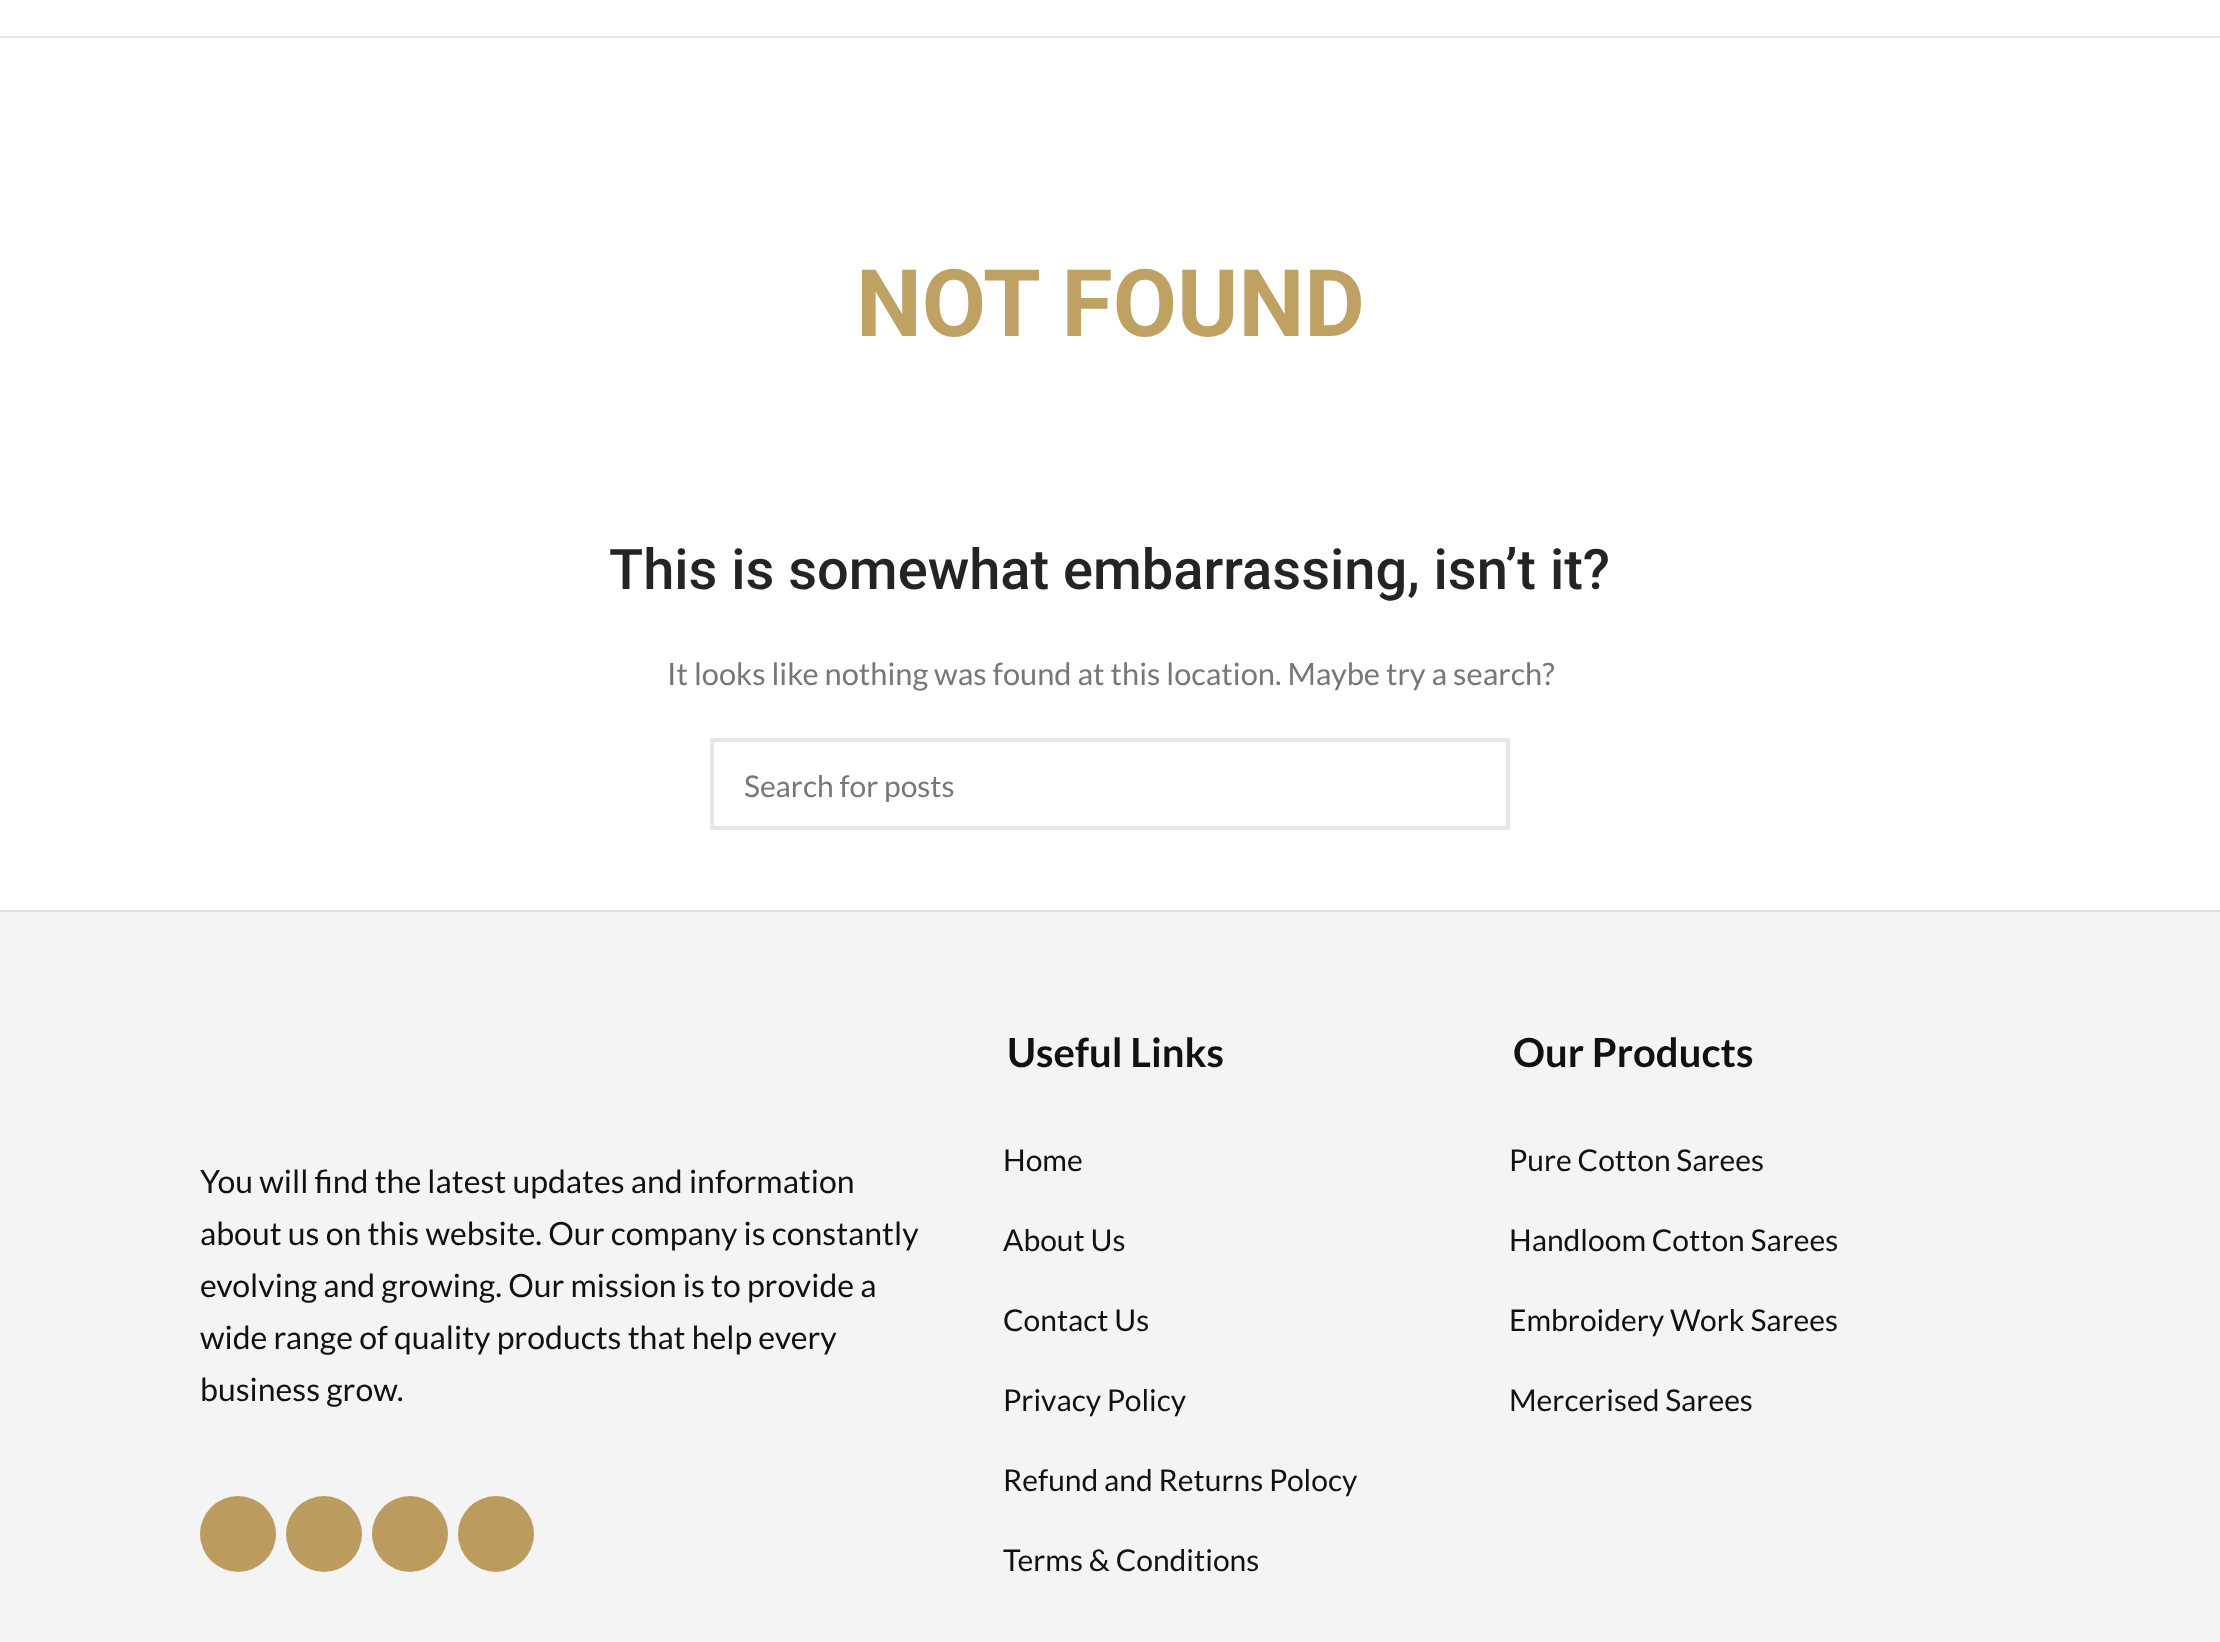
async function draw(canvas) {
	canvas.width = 2220;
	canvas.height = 1642;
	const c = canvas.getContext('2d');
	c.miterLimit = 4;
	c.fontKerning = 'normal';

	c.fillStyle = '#fff';
	c.fillRect(0, 0, 2220, 1642);
	c.fillStyle = '#e6e6e6';
	c.fillRect(0, 36, 2220, 2);
	c.font = 'bold 93.25px Roboto';
	c.fillStyle = '#bea163';
	c.fillText('NOT FOUND', 856, 336);
	c.font = '500 56px Roboto';
	c.fillStyle = '#242424';
	c.fillText('This is somewhat embarrassing, isn’t it?', 609, 589);
	c.font = '30.8px Lato';
	c.fillStyle = '#777';
	c.fillText('It looks like nothing was found at this location. Maybe try a search?', 667, 685);
	c.strokeStyle = '#e6e6e6';
	c.lineWidth = 4;
	c.strokeRect(712, 740, 796, 88);
	c.save();
	c.beginPath();
	c.rect(744, 766, 662, 36);
	c.clip();
	c.font = '30px Lato';
	c.fillText('Search for posts', 744, 797);
	c.restore();
	c.fillStyle = '#f4f4f4';
	c.fillRect(0, 912, 2220, 730);
	c.fillStyle = '#ddd';
	c.fillRect(0, 910, 2220, 2);
	c.font = '32px Lato';
	c.fillStyle = '#111';
	for (const [text, x, y] of [
		['You will find the latest updates and information', 200, 1193],
		['about us on this website. Our company is constantly', 200, 1245],
		['evolving and growing. Our mission is to provide a', 200, 1297],
		['wide range of quality products that help every', 200, 1349],
		['business grow.', 200, 1401],
	]) {
		c.fillText(text, x, y);
	}
	c.fillStyle = '#bc9b5f';
	c.beginPath();
	c.arc(238, 1534, 38, 0, 2 * Math.PI);
	c.fill();
	c.beginPath();
	c.arc(324, 1534, 38, 0, 2 * Math.PI);
	c.fill();
	c.beginPath();
	c.arc(410, 1534, 38, 0, 2 * Math.PI);
	c.fill();
	c.beginPath();
	c.arc(496, 1534, 38, 0, 2 * Math.PI);
	c.fill();
	c.font = 'bold 40px Lato';
	c.fillStyle = '#111';
	c.fillText('Useful Links', 1007, 1067);
	c.font = '30px Lato';
	for (const [text, x, y] of [
		['Home', 1003, 1171],
		['About Us', 1003, 1251],
		['Contact Us', 1003, 1331],
		['Privacy Policy', 1003, 1411],
		['Refund and Returns Polocy', 1003, 1491],
		['Terms & Conditions', 1003, 1571],
	]) {
		c.fillText(text, x, y);
	}
	c.font = 'bold 40px Lato';
	c.fillText('Our Products', 1513, 1067);
	c.font = '30px Lato';
	for (const [text, x, y] of [
		['Pure Cotton Sarees', 1509, 1171],
		['Handloom Cotton Sarees', 1509, 1251],
		['Embroidery Work Sarees', 1509, 1331],
		['Mercerised Sarees', 1509, 1411],
	]) {
		c.fillText(text, x, y);
	}
}

draw(document.querySelector('canvas'));
